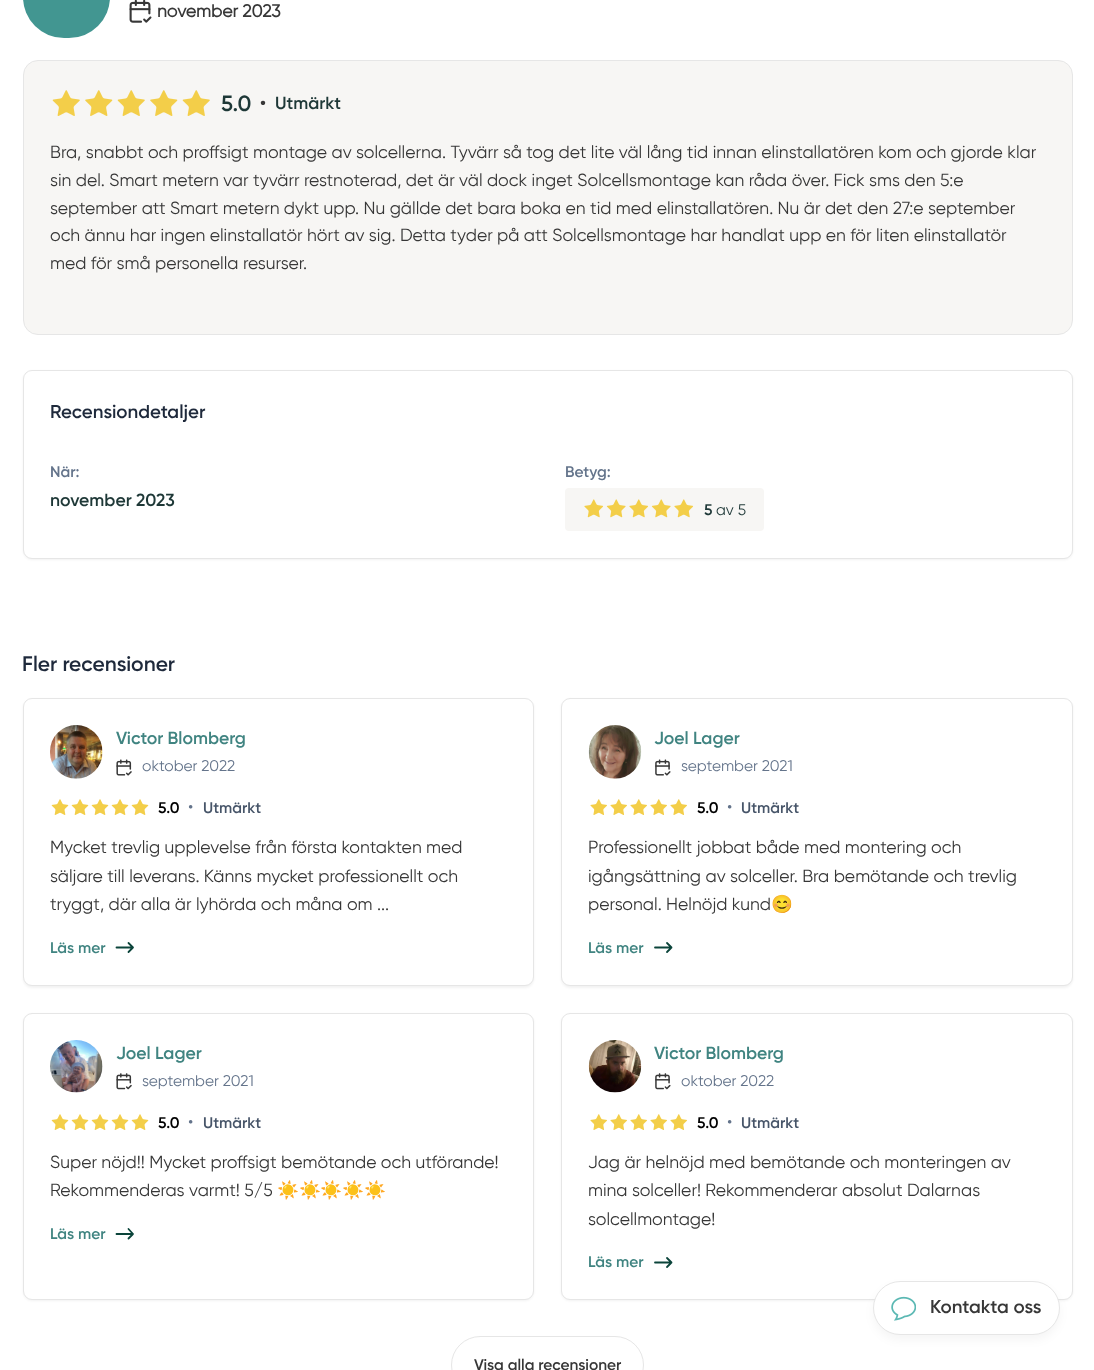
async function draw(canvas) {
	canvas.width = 1094;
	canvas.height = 1370;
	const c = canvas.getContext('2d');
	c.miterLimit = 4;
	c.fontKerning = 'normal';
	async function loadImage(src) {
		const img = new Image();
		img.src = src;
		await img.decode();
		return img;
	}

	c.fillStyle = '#fff';
	c.fillRect(0, 0, 1094, 1370);
	c.fillStyle = '#429691';
	c.beginPath();
	c.roundRect(23, -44, 87, 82, 43.5);
	c.fill();
	c.drawImage(await loadImage('img1.png'), 129, 0, 23, 23);
	c.font = 'bold 17.6px Gilroy';
	c.fillStyle = '#373737';
	c.fillText('november 2023', 157, 17);
	c.fillStyle = '#f3f1efa8';
	c.beginPath();
	c.roundRect(23.5, 60.5, 1049, 274, 14.5);
	c.fill();
	c.strokeStyle = '#e6e6e6';
	c.stroke();
	c.drawImage(await loadImage('img2.png'), 52, 90, 28, 26);
	c.drawImage(await loadImage('img3.png'), 85, 90, 28, 26);
	c.drawImage(await loadImage('img2.png'), 117, 90, 28, 26);
	c.drawImage(await loadImage('img3.png'), 150, 90, 28, 26);
	c.drawImage(await loadImage('img2.png'), 182, 90, 28, 26);
	c.font = '600 22px Gilroy';
	c.fillStyle = '#1e3837';
	c.fillText('5.0', 221, 111);
	c.font = '600 17.6px Gilroy';
	c.fillStyle = '#373737';
	c.fillText('•', 260, 109);
	c.fillStyle = '#1e3837';
	c.fillText('Utmärkt', 275, 109);
	c.font = '17.6px Gilroy';
	c.fillStyle = '#373737';
	for (const [text, x, y] of [
		['Bra, snabbt och proffsigt montage av solcellerna. Tyvärr så tog det lite väl lång tid innan elinstallatören kom och gjorde klar', 50, 158],
		['sin del. Smart metern var tyvärr restnoterad, det är väl dock inget Solcellsmontage kan råda över. Fick sms den 5:e', 50, 186],
		['september att Smart metern dykt upp. Nu gällde det bara boka en tid med elinstallatören. Nu är det den 27:e september', 50, 214],
		['och ännu har ingen elinstallatör hört av sig. Detta tyder på att Solcellsmontage har handlat upp en för liten elinstallatör', 50, 241],
		['med för små personella resurser.', 50, 269],
	]) {
		c.fillText(text, x, y);
	}
	c.fillStyle = '#0000000d';
	c.filter = 'blur(1px)';
	c.beginPath();
	c.roundRect(23, 371, 1050, 189, 9);
	c.fill();
	c.filter = 'none';
	c.fillStyle = '#fff';
	c.beginPath();
	c.roundRect(23.5, 370.5, 1049, 188, 8.5);
	c.fill();
	c.stroke();
	c.font = '600 18.75px Gilroy';
	c.fillStyle = '#1e293b';
	c.fillText('Recensiondetaljer', 50, 418);
	c.font = '600 15.5px Gilroy';
	c.fillStyle = '#64748b';
	c.fillText('När:', 50, 477);
	c.font = '600 17.6px Gilroy';
	c.fillStyle = '#1e3837';
	c.fillText('november 2023', 50, 506);
	c.font = '600 15.5px Gilroy';
	c.fillStyle = '#64748b';
	c.fillText('Betyg:', 565, 477);
	c.fillStyle = '#f7f6f4';
	c.beginPath();
	c.roundRect(565, 488, 199, 43, 4);
	c.fill();
	c.drawImage(await loadImage('img4.png'), 584, 499, 20, 19);
	c.drawImage(await loadImage('img5.png'), 606, 499, 20, 19);
	c.drawImage(await loadImage('img4.png'), 629, 499, 20, 19);
	c.drawImage(await loadImage('img5.png'), 651, 499, 20, 19);
	c.drawImage(await loadImage('img4.png'), 674, 499, 20, 19);
	c.fillStyle = '#1e3837';
	c.fillText('5', 704, 515);
	c.font = '15.5px Gilroy';
	c.fillText('av 5', 716, 515);
	c.font = '600 21px Gilroy';
	c.fillStyle = '#1e293b';
	c.fillText('Fler recensioner', 22, 671);
	c.fillStyle = '#0000000d';
	c.filter = 'blur(1px)';
	c.beginPath();
	c.roundRect(23, 699, 511, 289, 9);
	c.fill();
	c.filter = 'none';
	c.fillStyle = '#fff';
	c.beginPath();
	c.roundRect(23.5, 698.5, 510, 287, 8.5);
	c.fill();
	c.stroke();
	c.drawImage(await loadImage('img6.png'), 50, 725, 53, 54);
	c.font = '600 17.6px Gilroy';
	c.fillStyle = '#408481';
	c.fillText('Victor Blomberg', 116, 744);
	c.drawImage(await loadImage('img7.png'), 116, 759, 16, 17);
	c.font = '15.5px Gilroy';
	c.fillStyle = '#64748b';
	c.fillText('oktober 2022', 142, 771);
	c.drawImage(await loadImage('img8.png'), 51, 799, 18, 16);
	c.drawImage(await loadImage('img8.png'), 71, 799, 18, 16);
	c.drawImage(await loadImage('img8.png'), 91, 799, 18, 16);
	c.drawImage(await loadImage('img8.png'), 111, 799, 18, 16);
	c.drawImage(await loadImage('img8.png'), 131, 799, 18, 16);
	c.font = '600 15.5px Gilroy';
	c.fillStyle = '#000';
	c.fillText('5.0', 158, 813);
	c.font = '17.6px Gilroy';
	c.fillStyle = '#64748b';
	c.fillText('•', 188, 813);
	c.font = '600 15.5px Gilroy';
	c.fillStyle = '#475569';
	c.fillText('Utmärkt', 203, 813);
	c.font = '17.6px Gilroy';
	c.fillStyle = '#373737';
	for (const [text, x, y] of [
		['Mycket trevlig upplevelse från första kontakten med', 50, 853],
		['säljare till leverans. Känns mycket professionellt och', 50, 882],
		['tryggt, där alla är lyhörda och måna om ...', 50, 910],
	]) {
		c.fillText(text, x, y);
	}
	c.font = '600 15.5px Gilroy';
	c.fillStyle = '#408481';
	c.fillText('Läs mer', 50, 953);
	c.beginPath();
	c.moveTo(133, 947.5);
	c.lineTo(116.5, 947.5);
	c.moveTo(128.5, 943);
	c.lineTo(133, 947.5);
	c.lineTo(128.5, 952);
	c.strokeStyle = '#0b443a';
	c.lineWidth = 1.8;
	c.lineCap = 'round';
	c.lineJoin = 'round';
	c.stroke();
	c.fillStyle = '#0000000d';
	c.filter = 'blur(1px)';
	c.beginPath();
	c.roundRect(561, 699, 512, 289, 9);
	c.fill();
	c.filter = 'none';
	c.fillStyle = '#fff';
	c.beginPath();
	c.roundRect(561.5, 698.5, 511, 287, 8.5);
	c.fill();
	c.strokeStyle = '#e6e6e6';
	c.lineWidth = 1;
	c.lineJoin = 'miter';
	c.stroke();
	c.drawImage(await loadImage('img9.png'), 588, 725, 54, 54);
	c.font = '600 17.6px Gilroy';
	c.fillStyle = '#408481';
	c.fillText('Joel Lager', 654, 744);
	c.drawImage(await loadImage('img10.png'), 655, 759, 16, 17);
	c.font = '15.5px Gilroy';
	c.fillStyle = '#64748b';
	c.fillText('september 2021', 681, 771);
	c.drawImage(await loadImage('img11.png'), 590, 799, 17, 16);
	c.drawImage(await loadImage('img11.png'), 610, 799, 17, 16);
	c.drawImage(await loadImage('img11.png'), 630, 799, 17, 16);
	c.drawImage(await loadImage('img11.png'), 650, 799, 17, 16);
	c.drawImage(await loadImage('img11.png'), 670, 799, 17, 16);
	c.font = '600 15.5px Gilroy';
	c.fillStyle = '#000';
	c.fillText('5.0', 697, 813);
	c.font = '17.6px Gilroy';
	c.fillStyle = '#64748b';
	c.fillText('•', 727, 813);
	c.font = '600 15.5px Gilroy';
	c.fillStyle = '#475569';
	c.fillText('Utmärkt', 741, 813);
	c.font = '17.6px Gilroy';
	c.fillStyle = '#373737';
	for (const [text, x, y] of [
		['Professionellt jobbat både med montering och', 588, 853],
		['igångsättning av solceller. Bra bemötande och trevlig', 588, 882],
		['personal. Helnöjd kund', 588, 910],
	]) {
		c.fillText(text, x, y);
	}
	c.font = '17.6px Noto Color Emoji';
	c.fillText('😊', 771, 910);
	c.font = '600 15.5px Gilroy';
	c.fillStyle = '#408481';
	c.fillText('Läs mer', 588, 953);
	c.beginPath();
	c.moveTo(671.5, 947.5);
	c.lineTo(655, 947.5);
	c.moveTo(667, 943);
	c.lineTo(671.5, 947.5);
	c.lineTo(667, 952);
	c.strokeStyle = '#0b443a';
	c.lineWidth = 1.8;
	c.lineJoin = 'round';
	c.stroke();
	c.fillStyle = '#0000000d';
	c.filter = 'blur(1px)';
	c.beginPath();
	c.roundRect(23, 1014, 511, 287, 9);
	c.fill();
	c.filter = 'none';
	c.fillStyle = '#fff';
	c.beginPath();
	c.roundRect(23.5, 1013.5, 510, 286, 8.5);
	c.fill();
	c.strokeStyle = '#e6e6e6';
	c.lineWidth = 1;
	c.lineJoin = 'miter';
	c.stroke();
	c.drawImage(await loadImage('img12.png'), 50, 1040, 53, 53);
	c.font = '600 17.6px Gilroy';
	c.fillStyle = '#408481';
	c.fillText('Joel Lager', 116, 1059);
	c.drawImage(await loadImage('img13.png'), 116, 1073, 16, 17);
	c.font = '15.5px Gilroy';
	c.fillStyle = '#64748b';
	c.fillText('september 2021', 142, 1086);
	c.drawImage(await loadImage('img8.png'), 51, 1114, 18, 16);
	c.drawImage(await loadImage('img8.png'), 71, 1114, 18, 16);
	c.drawImage(await loadImage('img8.png'), 91, 1114, 18, 16);
	c.drawImage(await loadImage('img8.png'), 111, 1114, 18, 16);
	c.drawImage(await loadImage('img8.png'), 131, 1114, 18, 16);
	c.font = '600 15.5px Gilroy';
	c.fillStyle = '#000';
	c.fillText('5.0', 158, 1128);
	c.font = '17.6px Gilroy';
	c.fillStyle = '#64748b';
	c.fillText('•', 188, 1128);
	c.font = '600 15.5px Gilroy';
	c.fillStyle = '#475569';
	c.fillText('Utmärkt', 203, 1128);
	c.font = '17.6px Gilroy';
	c.fillStyle = '#373737';
	c.fillText('Super nöjd!! Mycket proffsigt bemötande och utförande!', 50, 1168);
	c.fillText('Rekommenderas varmt! 5/5', 50, 1196);
	c.font = '17.6px Noto Color Emoji';
	c.fillText('☀️☀️☀️☀️☀️', 277, 1196);
	c.font = '600 15.5px Gilroy';
	c.fillStyle = '#408481';
	c.fillText('Läs mer', 50, 1239);
	c.beginPath();
	c.moveTo(133, 1234);
	c.lineTo(116.5, 1234);
	c.moveTo(128.5, 1229);
	c.lineTo(133, 1234);
	c.lineTo(128.5, 1238.5);
	c.strokeStyle = '#0b443a';
	c.lineWidth = 1.8;
	c.lineJoin = 'round';
	c.stroke();
	c.fillStyle = '#0000000d';
	c.filter = 'blur(1px)';
	c.beginPath();
	c.roundRect(561, 1014, 512, 287, 9);
	c.fill();
	c.filter = 'none';
	c.fillStyle = '#fff';
	c.beginPath();
	c.roundRect(561.5, 1013.5, 511, 286, 8.5);
	c.fill();
	c.strokeStyle = '#e6e6e6';
	c.lineWidth = 1;
	c.lineJoin = 'miter';
	c.stroke();
	c.drawImage(await loadImage('img14.png'), 588, 1040, 54, 53);
	c.font = '600 17.6px Gilroy';
	c.fillStyle = '#408481';
	c.fillText('Victor Blomberg', 654, 1059);
	c.drawImage(await loadImage('img15.png'), 655, 1073, 16, 17);
	c.font = '15.5px Gilroy';
	c.fillStyle = '#64748b';
	c.fillText('oktober 2022', 681, 1086);
	c.drawImage(await loadImage('img11.png'), 590, 1114, 17, 16);
	c.drawImage(await loadImage('img11.png'), 610, 1114, 17, 16);
	c.drawImage(await loadImage('img11.png'), 630, 1114, 17, 16);
	c.drawImage(await loadImage('img11.png'), 650, 1114, 17, 16);
	c.drawImage(await loadImage('img11.png'), 670, 1114, 17, 16);
	c.font = '600 15.5px Gilroy';
	c.fillStyle = '#000';
	c.fillText('5.0', 697, 1128);
	c.font = '17.6px Gilroy';
	c.fillStyle = '#64748b';
	c.fillText('•', 727, 1128);
	c.font = '600 15.5px Gilroy';
	c.fillStyle = '#475569';
	c.fillText('Utmärkt', 741, 1128);
	c.font = '17.6px Gilroy';
	c.fillStyle = '#373737';
	for (const [text, x, y] of [
		['Jag är helnöjd med bemötande och monteringen av', 588, 1168],
		['mina solceller! Rekommenderar absolut Dalarnas', 588, 1196],
		['solcellmontage!', 588, 1225],
	]) {
		c.fillText(text, x, y);
	}
	c.font = '600 15.5px Gilroy';
	c.fillStyle = '#408481';
	c.fillText('Läs mer', 588, 1267);
	c.beginPath();
	c.moveTo(671.5, 1262.5);
	c.lineTo(655, 1262.5);
	c.moveTo(667, 1258);
	c.lineTo(671.5, 1262.5);
	c.lineTo(667, 1267);
	c.strokeStyle = '#0b443a';
	c.lineWidth = 1.8;
	c.lineJoin = 'round';
	c.stroke();
	c.beginPath();
	c.roundRect(451.5, 1336.5, 192, 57, 28.5);
	c.strokeStyle = '#e6e6e6';
	c.lineWidth = 1;
	c.lineJoin = 'miter';
	c.stroke();
	c.fillStyle = '#373737';
	c.fillText('Visa alla recensioner', 474, 1370);
	c.fillStyle = '#0000000a';
	c.filter = 'blur(5px)';
	c.beginPath();
	c.roundRect(873, 1286, 187, 54, 27);
	c.fill();
	c.filter = 'none';
	c.fillStyle = '#fff';
	c.beginPath();
	c.roundRect(873.5, 1281.5, 186, 53, 26.5);
	c.fill();
	c.stroke();
	c.drawImage(await loadImage('img16.png'), 891, 1296, 25, 25);
	c.font = '600 18.75px Gilroy';
	c.fillStyle = '#373737';
	c.fillText('Kontakta oss', 930, 1313);
}

draw(document.querySelector('canvas'));
